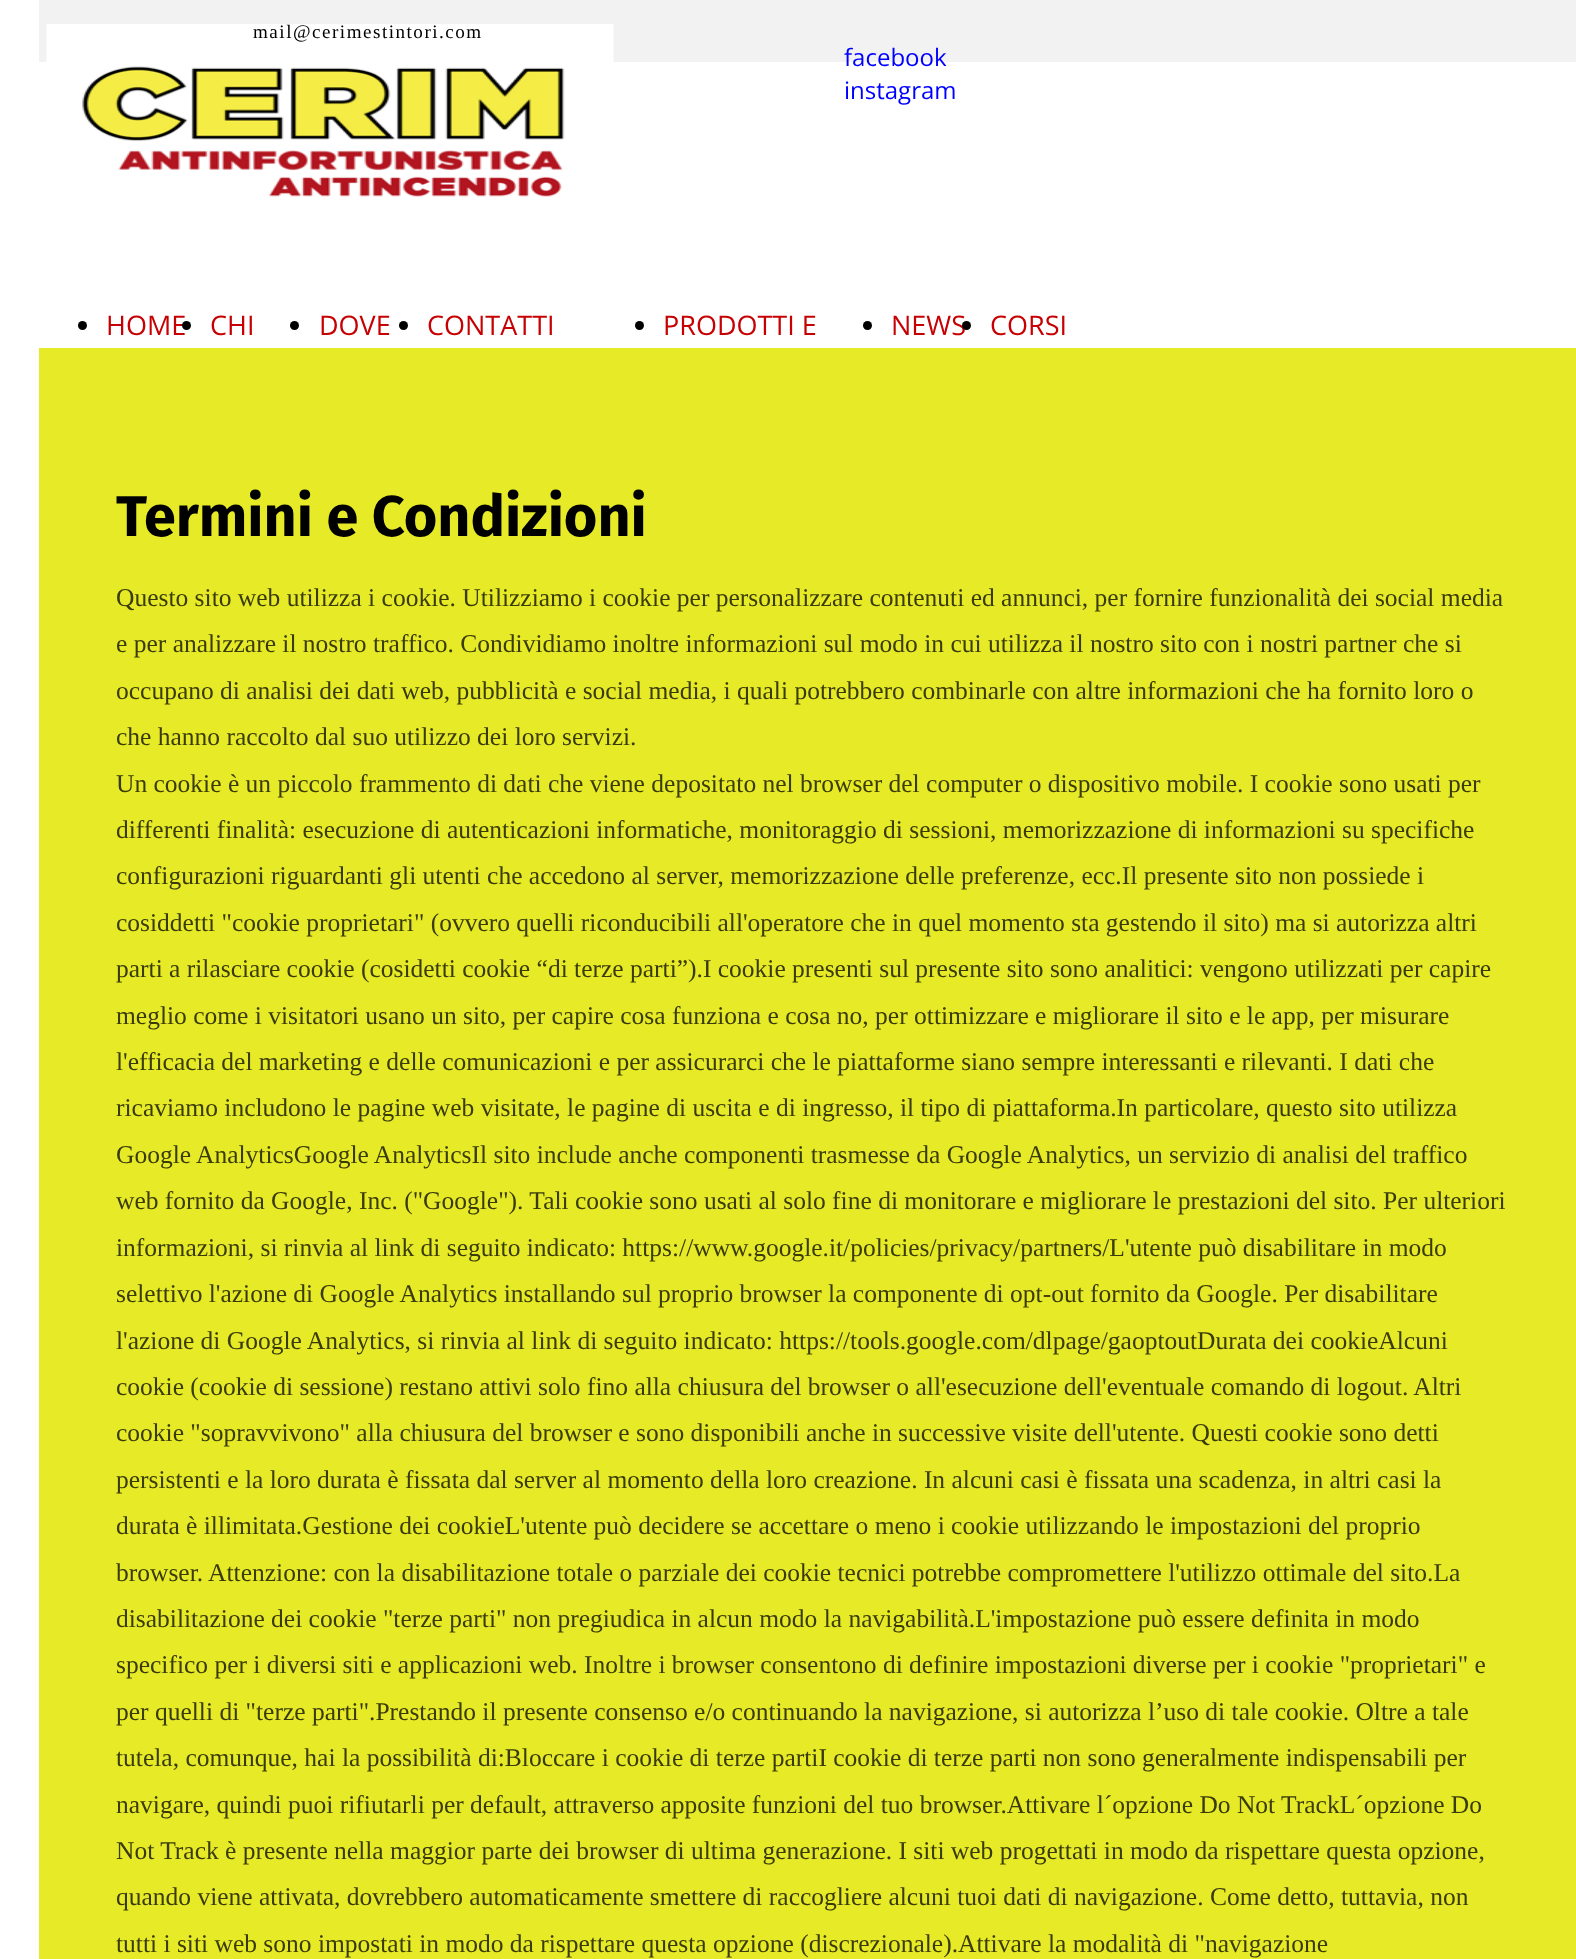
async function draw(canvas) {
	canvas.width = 1576;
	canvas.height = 1959;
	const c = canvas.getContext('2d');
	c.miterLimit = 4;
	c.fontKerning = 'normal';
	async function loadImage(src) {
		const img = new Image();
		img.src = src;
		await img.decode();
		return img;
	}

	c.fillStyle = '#fff';
	c.fillRect(0, 0, 1576, 1959);
	c.fillStyle = '#f2f2f2';
	c.fillRect(39, 0, 1537, 62);
	c.drawImage(await loadImage('img1.png'), 46, 24, 568, 173);
	c.letterSpacing = '1.5px';
	c.font = '19.1px Liberation Serif';
	c.fillStyle = '#000';
	c.fillText('mail@cerimestintori.com', 253, 38);
	c.letterSpacing = '0px';
	c.font = '24px Open Sans';
	c.fillStyle = '#00f';
	c.fillText('facebook', 844, 66);
	c.fillText('instagram', 844, 99);
	c.fillStyle = '#000';
	c.beginPath();
	c.arc(82.5, 325.5, 4.5, 0, 2 * Math.PI);
	c.fill();
	c.font = '27px Open Sans';
	c.fillStyle = '#c60003';
	c.fillText('HOME', 106, 335);
	c.fillStyle = '#000';
	c.beginPath();
	c.arc(186.5, 325.5, 4.5, 0, 2 * Math.PI);
	c.fill();
	c.fillStyle = '#c60003';
	c.fillText('CHI', 210, 335);
	c.fillStyle = '#000';
	c.beginPath();
	c.arc(294.5, 325.5, 4.5, 0, 2 * Math.PI);
	c.fill();
	c.fillStyle = '#c60003';
	c.fillText('DOVE', 319, 335);
	c.fillStyle = '#000';
	c.beginPath();
	c.arc(403.5, 325.5, 4.5, 0, 2 * Math.PI);
	c.fill();
	c.fillStyle = '#c60003';
	c.fillText('CONTATTI', 427, 335);
	c.fillStyle = '#000';
	c.beginPath();
	c.arc(639.5, 325.5, 4.5, 0, 2 * Math.PI);
	c.fill();
	c.fillStyle = '#c60003';
	c.fillText('PRODOTTI E', 663, 335);
	c.fillStyle = '#000';
	c.beginPath();
	c.arc(867.5, 325.5, 4.5, 0, 2 * Math.PI);
	c.fill();
	c.fillStyle = '#c60003';
	c.fillText('NEWS', 891, 335);
	c.fillStyle = '#000';
	c.beginPath();
	c.arc(966.5, 325.5, 4.5, 0, 2 * Math.PI);
	c.fill();
	c.fillStyle = '#c60003';
	c.fillText('CORSI', 990, 335);
	c.fillStyle = '#e7ea26';
	c.fillRect(39, 348, 1537, 1611);
	c.font = 'bold 57.5px Fira Sans';
	c.fillStyle = '#000';
	c.fillText('Termini e Condizioni', 116, 536);
	c.font = '25.5px Liberation Serif';
	c.fillStyle = '#3a3b0a';
	for (const [text, x, y] of [
		['Questo sito web utilizza i cookie. Utilizziamo i cookie per personalizzare contenuti ed annunci, per fornire funzionalità dei social media', 116, 606],
		['e per analizzare il nostro traffico. Condividiamo inoltre informazioni sul modo in cui utilizza il nostro sito con i nostri partner che si', 116, 652],
		['occupano di analisi dei dati web, pubblicità e social media, i quali potrebbero combinarle con altre informazioni che ha fornito loro o', 116, 699],
		['che hanno raccolto dal suo utilizzo dei loro servizi.', 116, 745],
		['Un cookie è un piccolo frammento di dati che viene depositato nel browser del computer o dispositivo mobile. I cookie sono usati per', 116, 792],
		['differenti finalità: esecuzione di autenticazioni informatiche, monitoraggio di sessioni, memorizzazione di informazioni su specifiche', 116, 838],
		['configurazioni riguardanti gli utenti che accedono al server, memorizzazione delle preferenze, ecc.Il presente sito non possiede i', 116, 884],
		['cosiddetti "cookie proprietari" (ovvero quelli riconducibili all\'operatore che in quel momento sta gestendo il sito) ma si autorizza altri', 116, 931],
		['parti a rilasciare cookie (cosidetti cookie “di terze parti”).I cookie presenti sul presente sito sono analitici: vengono utilizzati per capire', 116, 977],
		['meglio come i visitatori usano un sito, per capire cosa funziona e cosa no, per ottimizzare e migliorare il sito e le app, per misurare', 116, 1024],
		['l\'efficacia del marketing e delle comunicazioni e per assicurarci che le piattaforme siano sempre interessanti e rilevanti. I dati che', 116, 1070],
		['ricaviamo includono le pagine web visitate, le pagine di uscita e di ingresso, il tipo di piattaforma.In particolare, questo sito utilizza', 116, 1116],
		['Google AnalyticsGoogle AnalyticsIl sito include anche componenti trasmesse da Google Analytics, un servizio di analisi del traffico', 116, 1163],
		['web fornito da Google, Inc. ("Google"). Tali cookie sono usati al solo fine di monitorare e migliorare le prestazioni del sito. Per ulteriori', 116, 1209],
		['informazioni, si rinvia al link di seguito indicato: https://www.google.it/policies/privacy/partners/L\'utente può disabilitare in modo', 116, 1256],
		['selettivo l\'azione di Google Analytics installando sul proprio browser la componente di opt-out fornito da Google. Per disabilitare', 116, 1302],
		['l\'azione di Google Analytics, si rinvia al link di seguito indicato: https://tools.google.com/dlpage/gaoptoutDurata dei cookieAlcuni', 116, 1349],
		['cookie (cookie di sessione) restano attivi solo fino alla chiusura del browser o all\'esecuzione dell\'eventuale comando di logout. Altri', 116, 1395],
		['cookie "sopravvivono" alla chiusura del browser e sono disponibili anche in successive visite dell\'utente. Questi cookie sono detti', 116, 1441],
		['persistenti e la loro durata è fissata dal server al momento della loro creazione. In alcuni casi è fissata una scadenza, in altri casi la', 116, 1488],
		['durata è illimitata.Gestione dei cookieL\'utente può decidere se accettare o meno i cookie utilizzando le impostazioni del proprio', 116, 1534],
		['browser. Attenzione: con la disabilitazione totale o parziale dei cookie tecnici potrebbe compromettere l\'utilizzo ottimale del sito.La', 116, 1581],
		['disabilitazione dei cookie "terze parti" non pregiudica in alcun modo la navigabilità.L\'impostazione può essere definita in modo', 116, 1627],
		['specifico per i diversi siti e applicazioni web. Inoltre i browser consentono di definire impostazioni diverse per i cookie "proprietari" e', 116, 1673],
		['per quelli di "terze parti".Prestando il presente consenso e/o continuando la navigazione, si autorizza l’uso di tale cookie. Oltre a tale', 116, 1720],
		['tutela, comunque, hai la possibilità di:Bloccare i cookie di terze partiI cookie di terze parti non sono generalmente indispensabili per', 116, 1766],
		['navigare, quindi puoi rifiutarli per default, attraverso apposite funzioni del tuo browser.Attivare l´opzione Do Not TrackL´opzione Do', 116, 1813],
		['Not Track è presente nella maggior parte dei browser di ultima generazione. I siti web progettati in modo da rispettare questa opzione,', 116, 1859],
		['quando viene attivata, dovrebbero automaticamente smettere di raccogliere alcuni tuoi dati di navigazione. Come detto, tuttavia, non', 116, 1905],
		['tutti i siti web sono impostati in modo da rispettare questa opzione (discrezionale).Attivare la modalità di "navigazione', 116, 1952],
	]) {
		c.fillText(text, x, y);
	}
}

draw(document.querySelector('canvas'));
